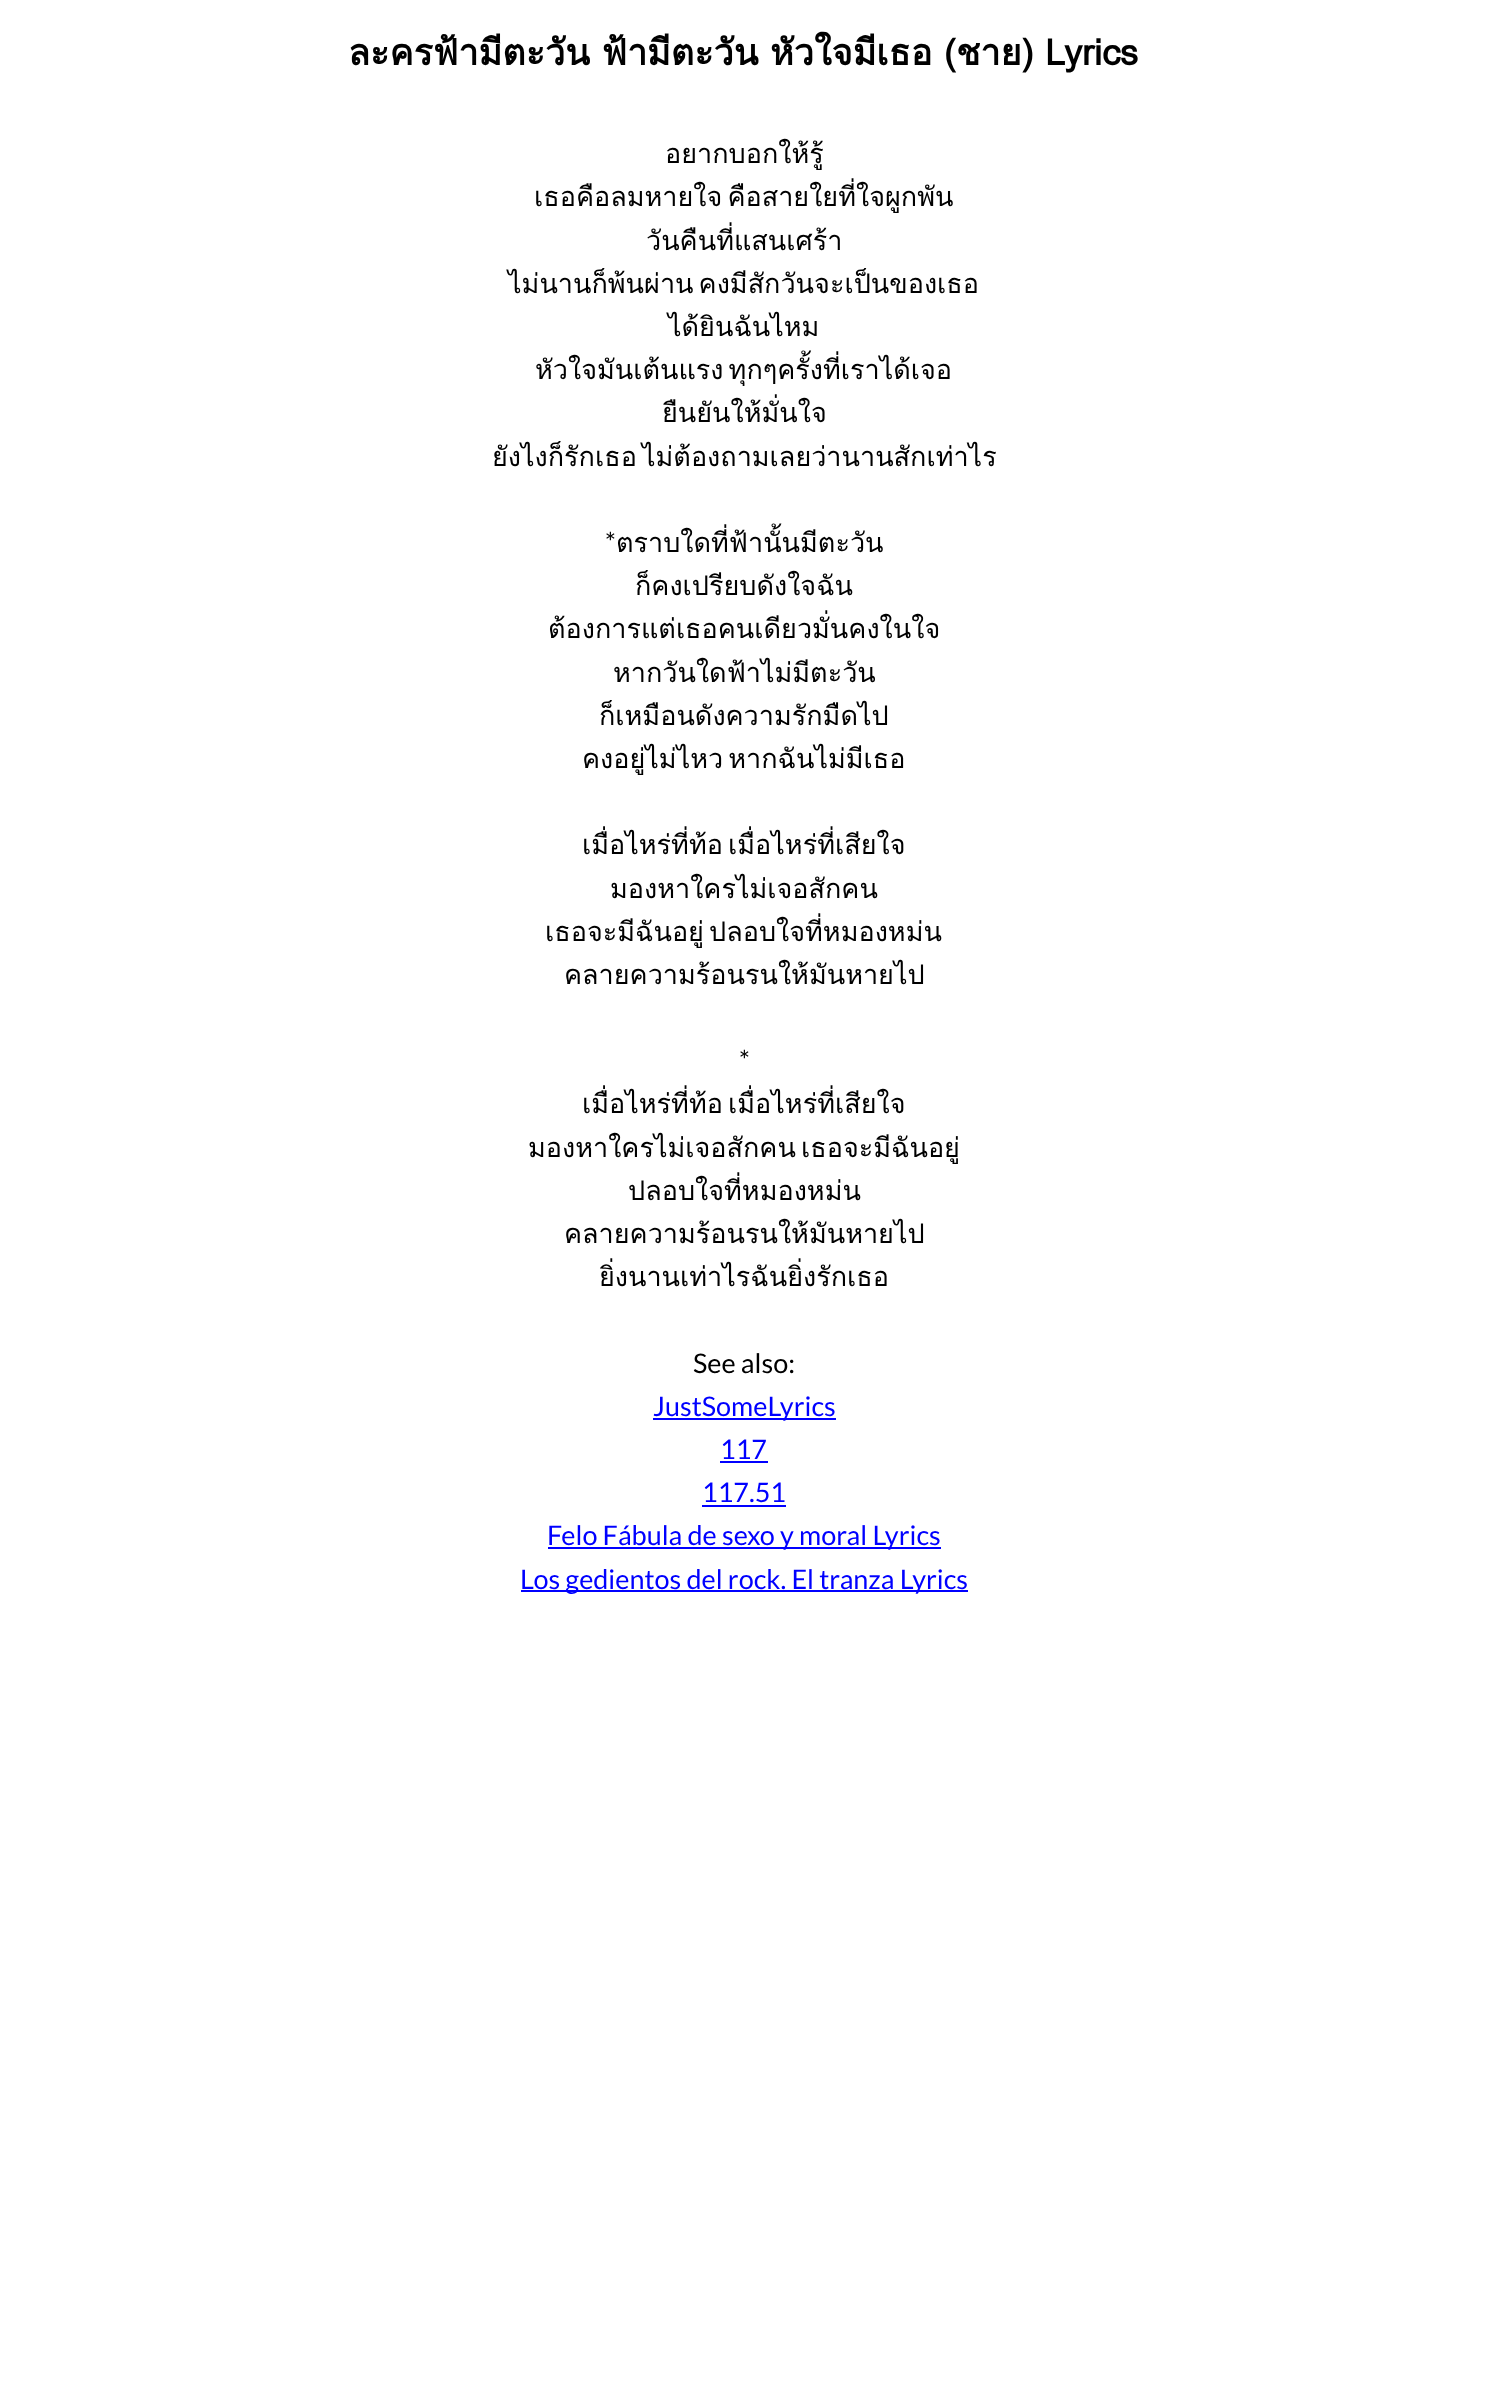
async function draw(canvas) {
	canvas.width = 1488;
	canvas.height = 2405;
	const c = canvas.getContext('2d');
	c.miterLimit = 4;
	c.fontKerning = 'normal';

	c.fillStyle = '#fff';
	c.fillRect(0, 0, 1488, 2405);
	c.wordSpacing = '-0.5px';
	c.font = 'bold 36px Loma';
	c.fillStyle = '#000';
	c.fillText('ละครฟ้ามีตะวัน ฟ้ามีตะวัน หัวใจมีเธอ (ชาย) Lyrics', 348, 65);
	c.wordSpacing = '0px';
	c.font = '27px Loma';
	c.fillText('อยากบอกให้รู้', 665, 163);
	c.wordSpacing = '-4px';
	c.fillText('เธอคือลมหายใจ คือสายใยที่ใจผูกพัน', 534, 206);
	c.wordSpacing = '0px';
	c.fillText('วันคืนที่แสนเศร้า', 646, 250);
	c.wordSpacing = '-4px';
	c.fillText('ไม่นานก็พ้นผ่าน คงมีสักวันจะเป็นของเธอ', 508, 293);
	c.wordSpacing = '0px';
	c.fillText('ได้ยินฉันไหม', 668, 336);
	c.wordSpacing = '-4px';
	c.fillText('หัวใจมันเต้นแรง ทุกๆครั้งที่เราได้เจอ', 535, 379);
	c.wordSpacing = '0px';
	c.fillText('ยืนยันให้มั่นใจ', 662, 422);
	c.wordSpacing = '-4px';
	c.fillText('ยังไงก็รักเธอ ไม่ต้องถามเลยว่านานสักเท่าไร', 492, 466);
	c.wordSpacing = '0px';
	c.font = '27px Lato';
	c.fillText('*', 605, 552);
	c.font = '27px Loma';
	for (const [text, x, y] of [
		['ตราบใดที่ฟ้านั้นมีตะวัน', 616, 552],
		['ก็คงเปรียบดังใจฉัน', 635, 595],
		['ต้องการแต่เธอคนเดียวมั่นคงในใจ', 548, 638],
		['หากวันใดฟ้าไม่มีตะวัน', 613, 682],
		['ก็เหมือนดังความรักมืดไป', 599, 725],
	]) {
		c.fillText(text, x, y);
	}
	c.wordSpacing = '-4px';
	c.fillText('คงอยู่ไม่ไหว หากฉันไม่มีเธอ', 582, 768);
	c.fillText('เมื่อไหร่ที่ท้อ เมื่อไหร่ที่เสียใจ', 582, 854);
	c.wordSpacing = '0px';
	c.fillText('มองหาใครไม่เจอสักคน', 610, 898);
	c.wordSpacing = '-4px';
	c.fillText('เธอจะมีฉันอยู่ ปลอบใจที่หมองหม่น', 545, 941);
	c.wordSpacing = '0px';
	c.fillText('คลายความร้อนรนให้มันหายไป', 564, 984);
	c.font = '27px Lato';
	c.fillText('*', 739, 1070);
	c.wordSpacing = '-4px';
	c.font = '27px Loma';
	c.fillText('เมื่อไหร่ที่ท้อ เมื่อไหร่ที่เสียใจ', 582, 1113);
	c.fillText('มองหาใครไม่เจอสักคน เธอจะมีฉันอยู่', 528, 1157);
	c.wordSpacing = '0px';
	for (const [text, x, y] of [
		['ปลอบใจที่หมองหม่น', 628, 1200],
		['คลายความร้อนรนให้มันหายไป', 564, 1243],
		['ยิ่งนานเท่าไรฉันยิ่งรักเธอ', 599, 1286],
	]) {
		c.fillText(text, x, y);
	}
	c.font = '27px Lato';
	c.fillText('See also:', 693, 1373);
	c.fillStyle = '#00f';
	c.fillRect(653, 1418, 183, 2);
	c.fillText('JustSomeLyrics', 653, 1416);
	c.fillText('117', 720, 1459);
	c.fillRect(720, 1461, 48, 2);
	c.fillText('117.51', 702, 1502);
	c.fillRect(702, 1505, 84, 2);
	c.fillRect(548, 1547, 393, 2);
	c.fillText('Felo Fábula de sexo y moral Lyrics', 547, 1545);
	c.fillRect(521, 1590, 447, 2);
	c.fillText('Los gedientos del rock. El tranza Lyrics', 520, 1589);
}

draw(document.querySelector('canvas'));
